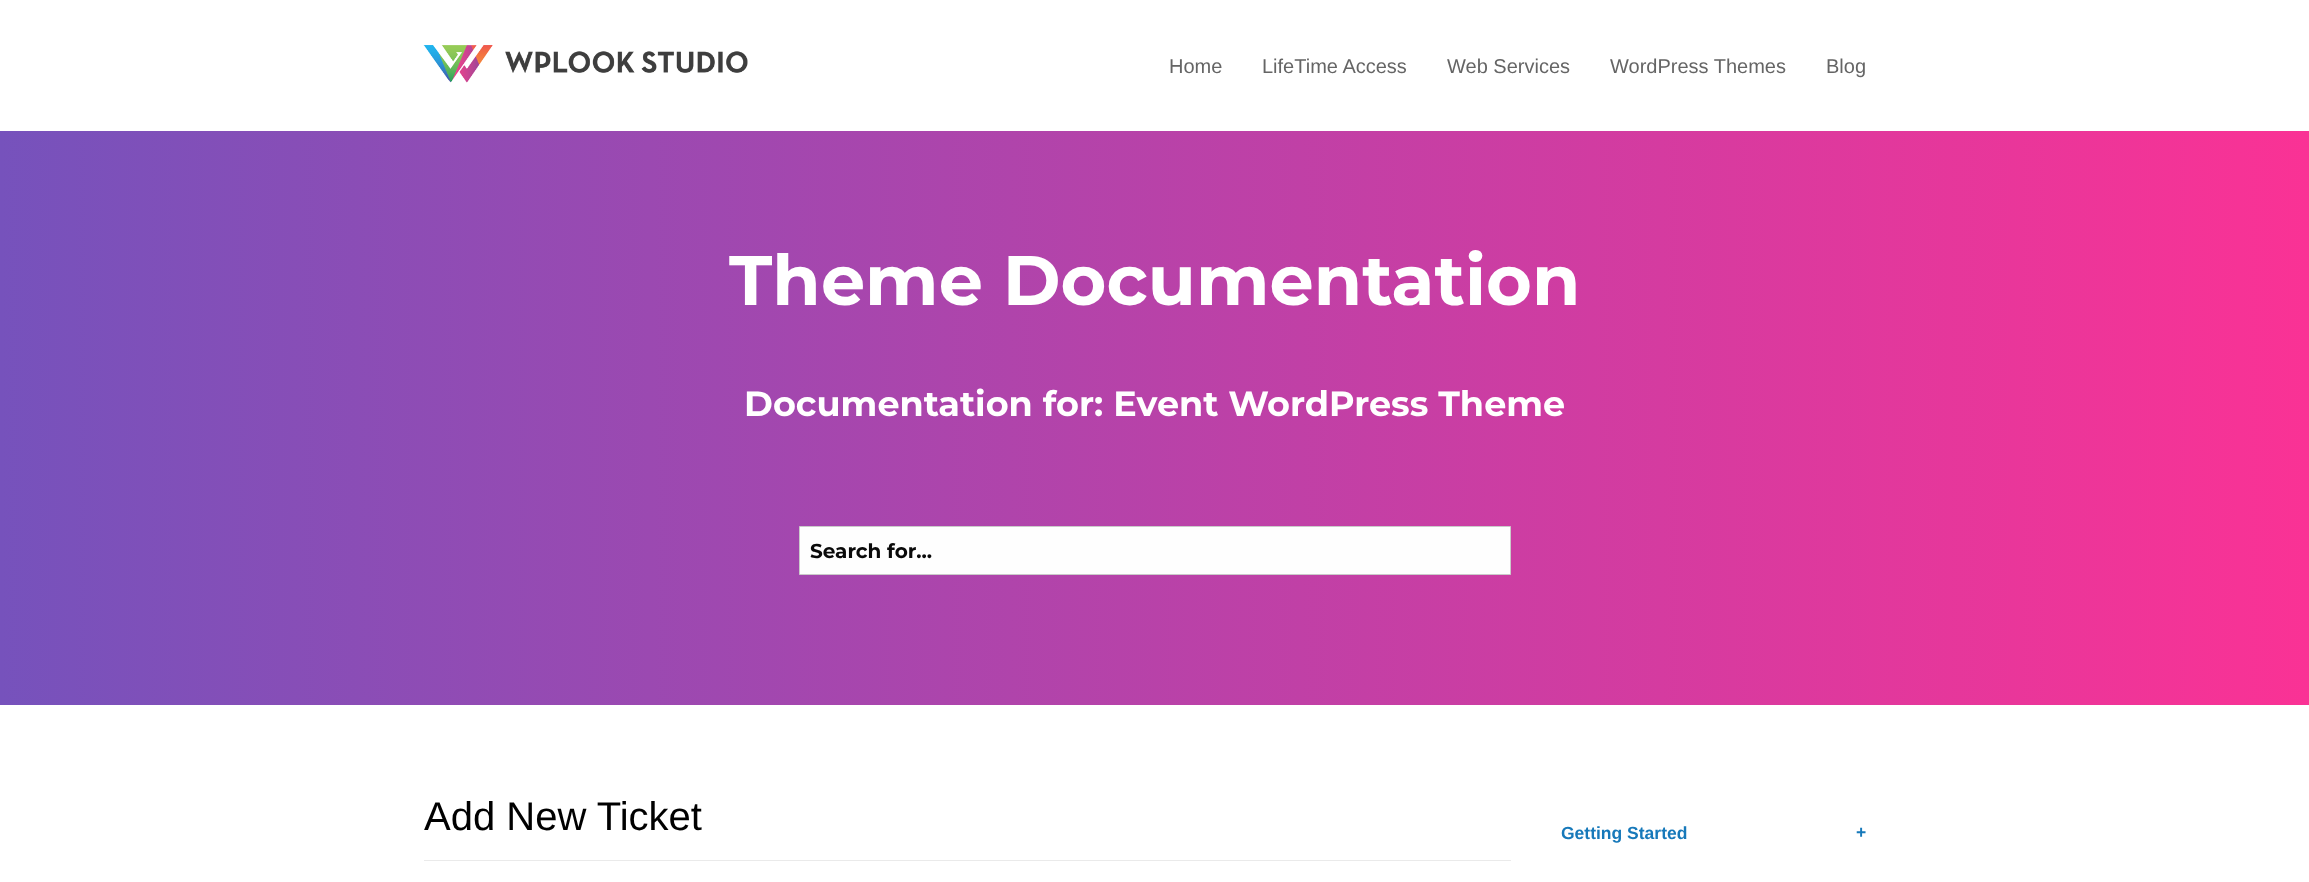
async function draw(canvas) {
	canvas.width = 2309;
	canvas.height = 882;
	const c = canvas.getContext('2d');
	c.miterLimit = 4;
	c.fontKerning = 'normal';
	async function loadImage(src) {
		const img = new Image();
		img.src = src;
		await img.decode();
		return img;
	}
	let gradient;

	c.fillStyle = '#fff';
	c.fillRect(0, 0, 2309, 882);
	c.drawImage(await loadImage('img1.png'), 423, 45, 325, 38);
	c.font = '20px Liberation Sans';
	c.fillStyle = '#656565';
	for (const [text, x, y] of [
		['Home', 1169, 73],
		['LifeTime Access', 1262, 73],
		['Web Services', 1447, 73],
		['WordPress Themes', 1610, 73],
		['Blog', 1826, 73],
	]) {
		c.fillText(text, x, y);
	}
	gradient = c.createLinearGradient(0, 418, 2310, 418);
	gradient.addColorStop(0, '#7652bc');
	gradient.addColorStop(1, '#fa3295');
	c.fillStyle = gradient;
	c.fillRect(0, 131, 2309, 574);
	c.font = '100 70px Montserrat';
	c.fillStyle = '#fff';
	c.fillText('Theme Documentation', 729, 305);
	c.font = '100 35px Montserrat';
	c.fillText('Documentation for: Event WordPress Theme', 744, 416);
	c.fillStyle = '#fefefe';
	c.beginPath();
	c.rect(799.5, 526.5, 711, 48);
	c.fill();
	c.strokeStyle = '#cacaca';
	c.stroke();
	c.font = '100 20px Montserrat';
	c.fillStyle = '#0a0a0a';
	c.fillText('Search for...', 810, 558);
	c.fillStyle = '#eaeaea';
	c.fillRect(424, 860, 1087, 1);
	c.font = '40px Liberation Sans';
	c.fillStyle = '#000';
	c.fillText('Add New Ticket', 424, 830);
	c.font = 'bold 17.5px Liberation Sans';
	c.fillStyle = '#1779ba';
	c.fillText('Getting Started', 1561, 839);
	c.fillText('+', 1856, 838);
}

draw(document.querySelector('canvas'));
